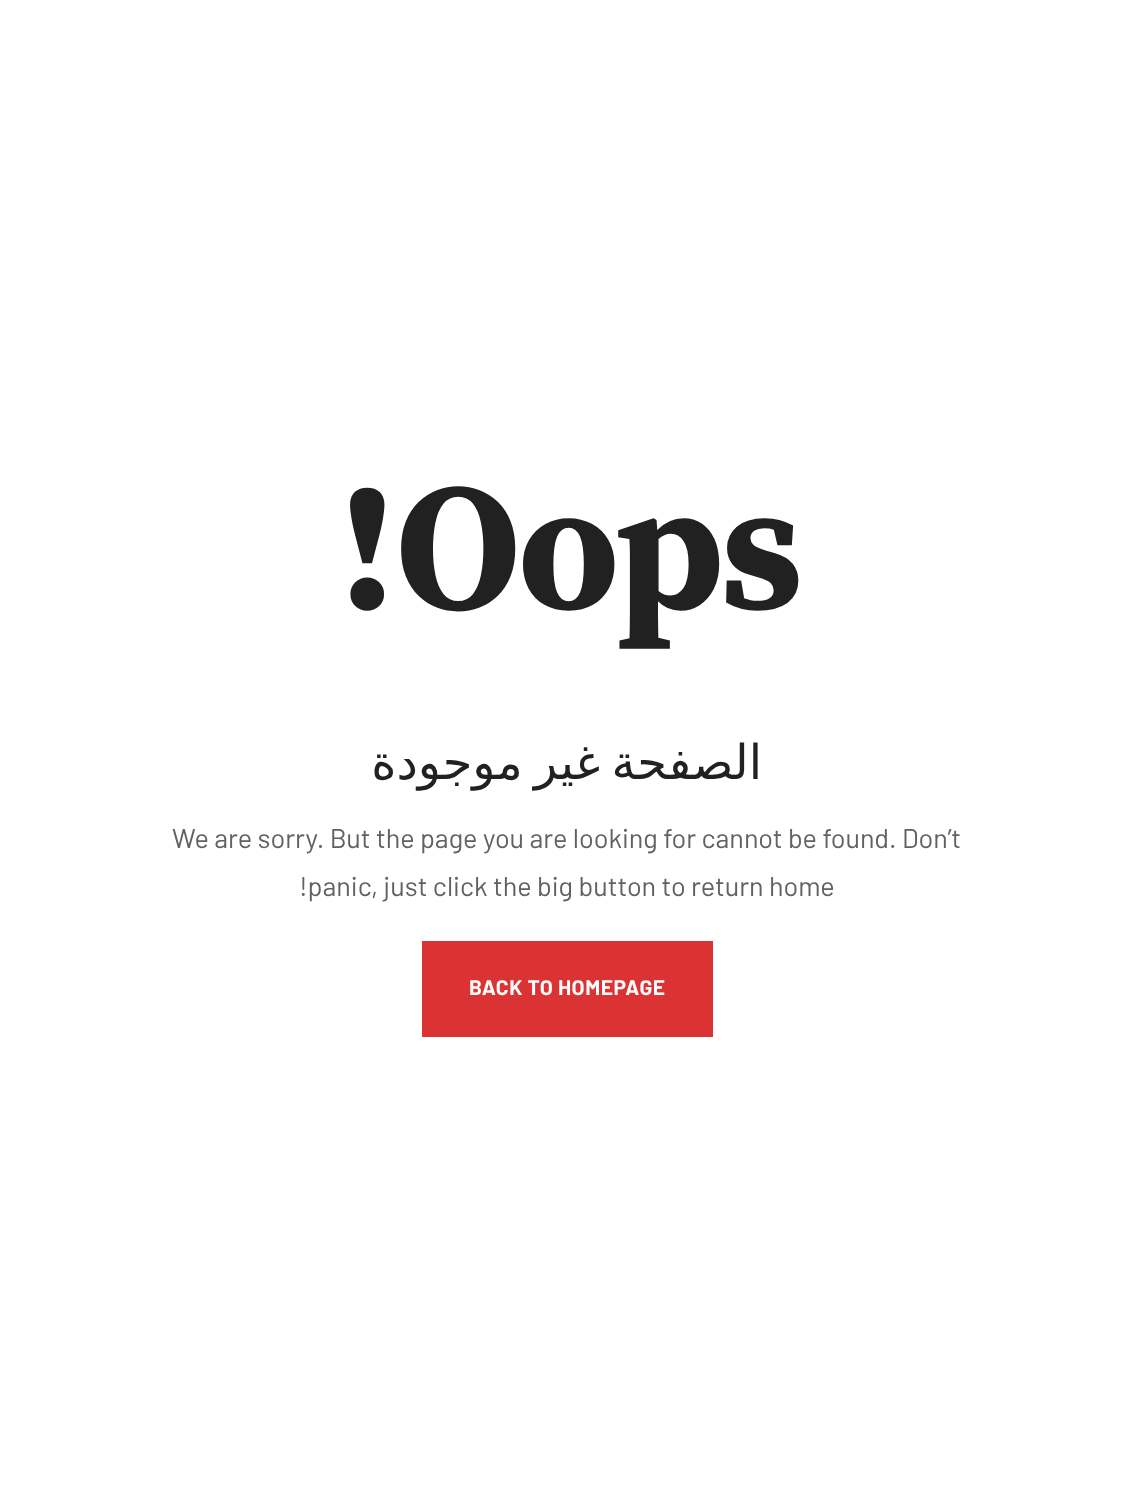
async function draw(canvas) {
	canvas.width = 1133;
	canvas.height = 1501;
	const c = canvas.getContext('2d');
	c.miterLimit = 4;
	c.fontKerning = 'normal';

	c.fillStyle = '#fff';
	c.fillRect(0, 0, 1133, 1501);
	c.letterSpacing = '-3.5px';
	c.font = 'bold 180px Source Serif Pro';
	c.fillStyle = '#212121';
	c.fillText('!Oops', 336, 608);
	c.letterSpacing = '0px';
	c.wordSpacing = '-4px';
	c.direction = 'rtl';
	c.font = '48px DejaVu Sans';
	c.fillText('الصفحة غير موجودة', 762, 779);
	c.wordSpacing = '0px';
	c.direction = 'ltr';
	c.font = '27px Barlow';
	c.fillStyle = '#616161';
	c.fillText('We are sorry. But the page you are looking for cannot be found. Don’t', 172, 848);
	c.fillText('!panic, just click the big button to return home', 299, 896);
	c.fillStyle = '#db3334';
	c.fillRect(422, 941, 291, 96);
	c.letterSpacing = '0.5px';
	c.font = 'bold 21px Barlow';
	c.fillStyle = '#fff';
	c.fillText('BACK TO HOMEPAGE', 469, 995);
}

draw(document.querySelector('canvas'));
